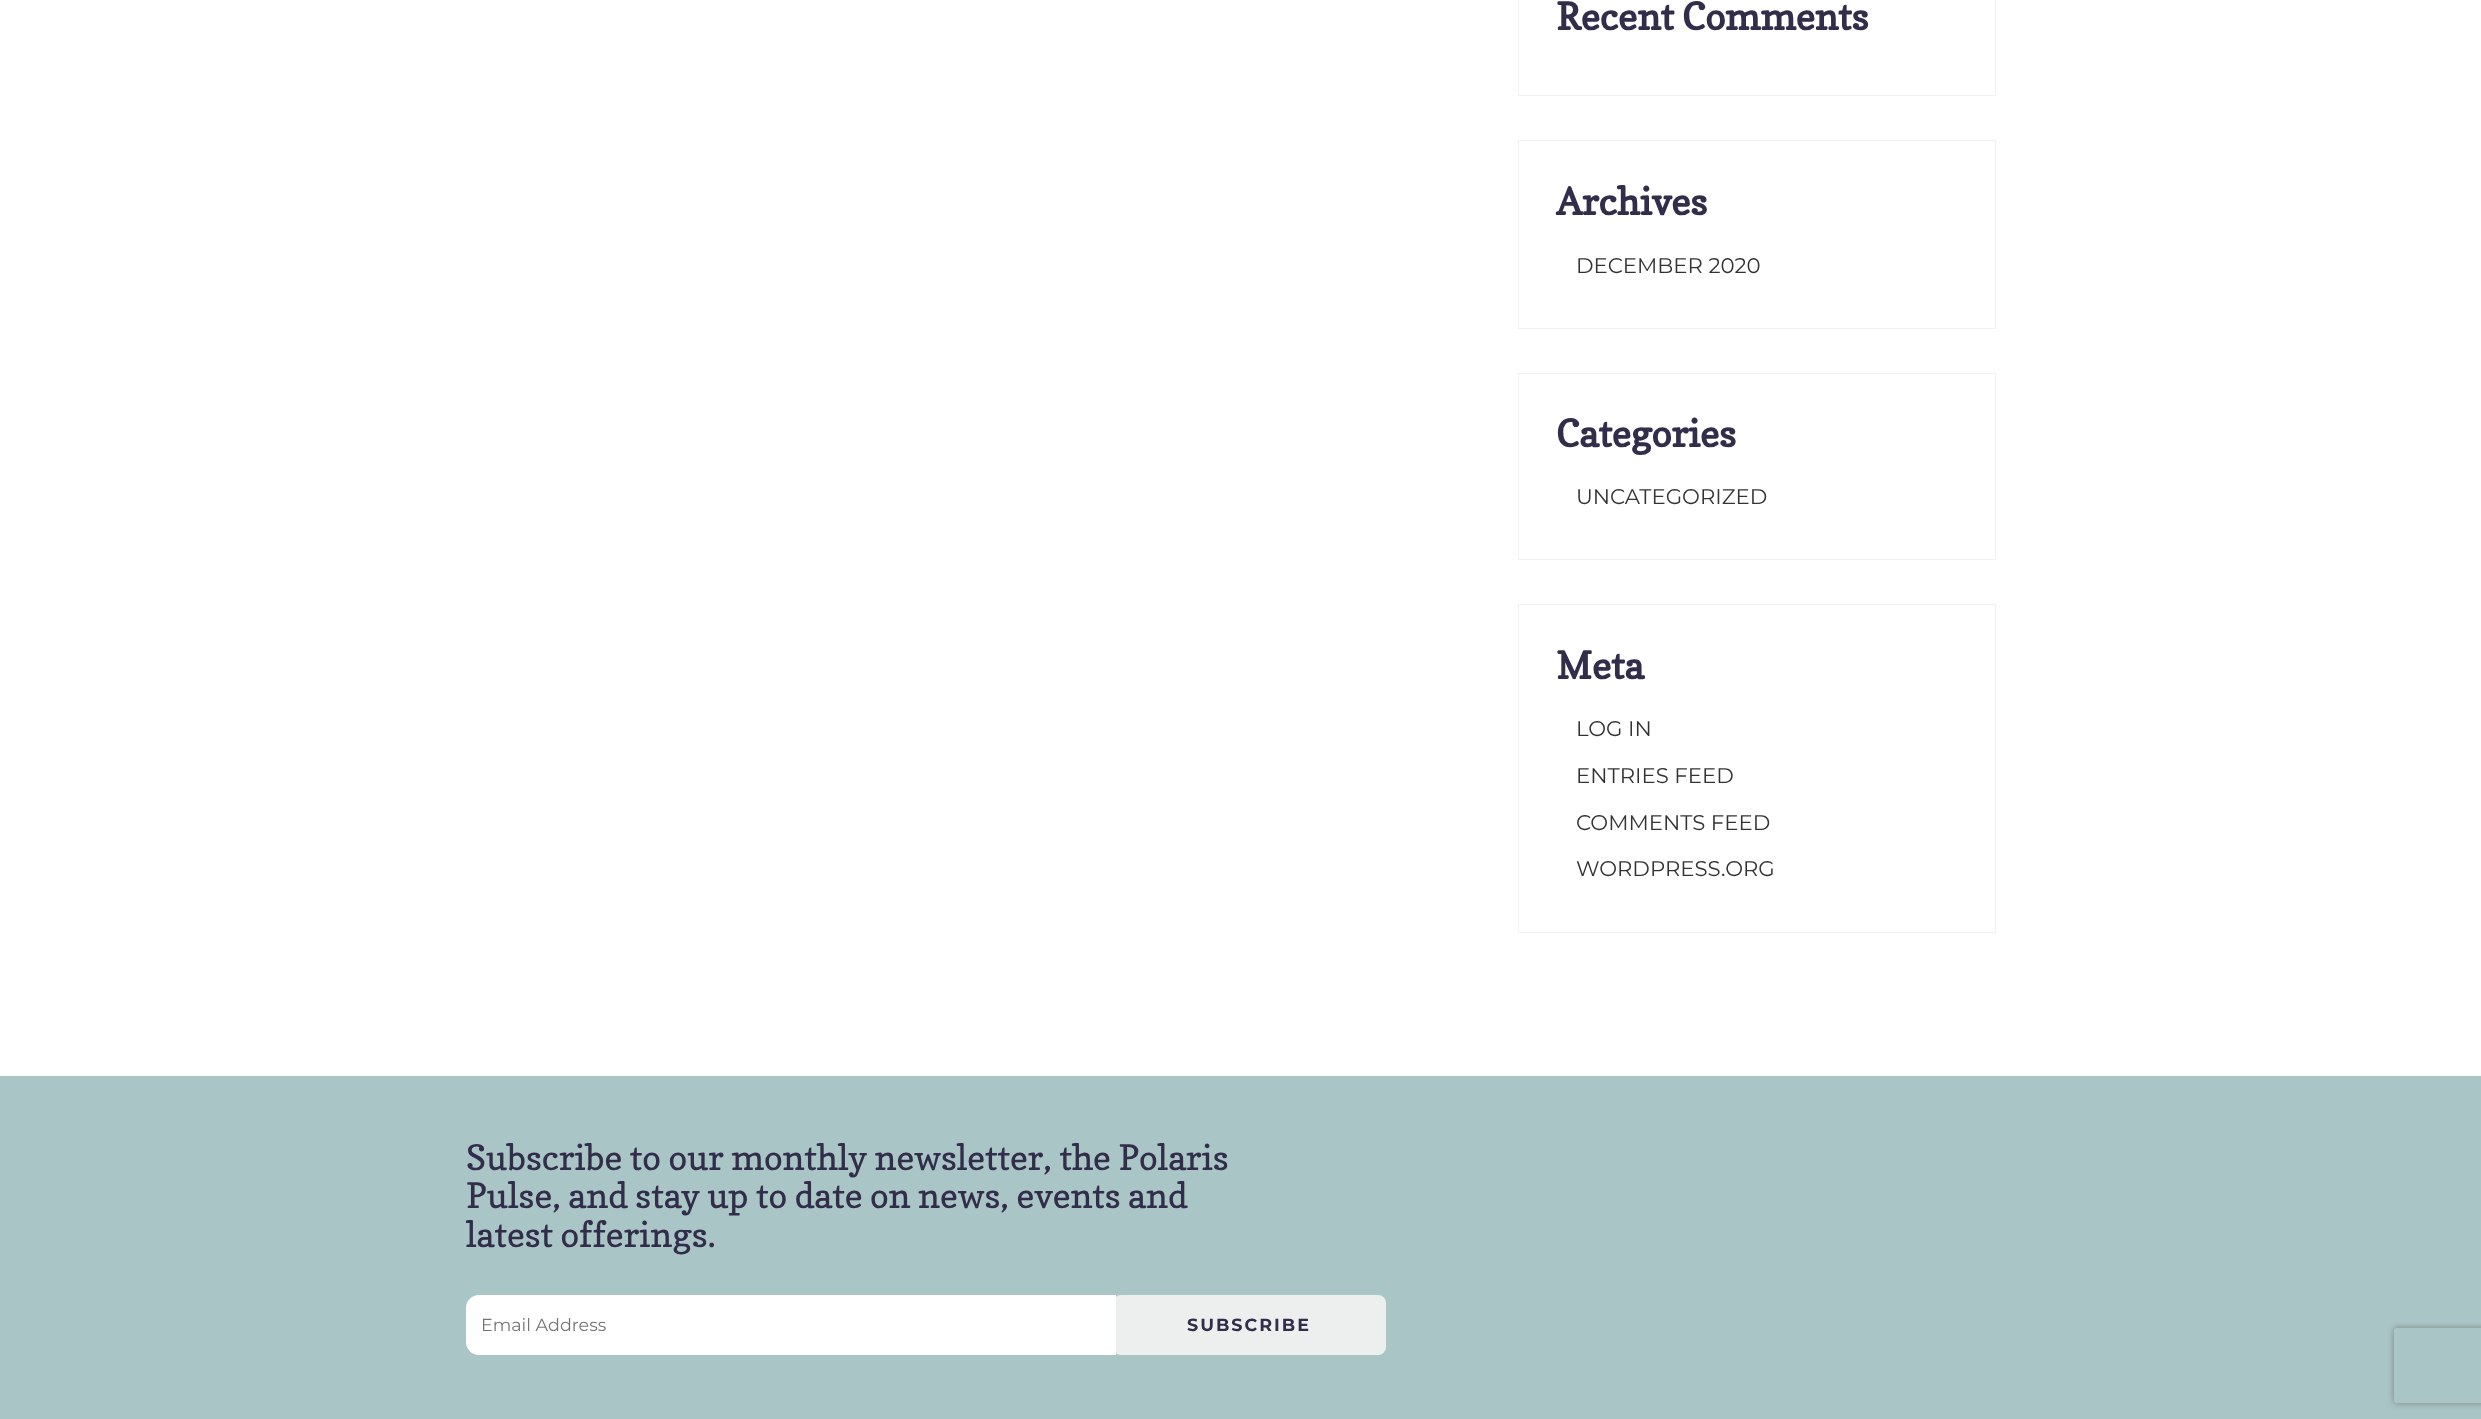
async function draw(canvas) {
	canvas.width = 2481;
	canvas.height = 1419;
	const c = canvas.getContext('2d');
	c.miterLimit = 4;
	c.fontKerning = 'normal';

	c.fillStyle = '#fff';
	c.fillRect(0, 0, 2481, 1419);
	c.strokeStyle = '#f1f1f1';
	c.strokeRect(1518.5, -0.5, 477, 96);
	c.font = 'bold 37.5px Copse';
	c.fillStyle = '#322d4a';
	c.fillText('Recent Comments', 1556, 30);
	c.strokeRect(1518.5, 140.5, 477, 188);
	c.fillText('Archives', 1556, 215);
	c.font = '21.25px Montserrat';
	c.fillStyle = '#333';
	c.fillText('DECEMBER 2020', 1576, 273);
	c.strokeRect(1518.5, 373.5, 477, 186);
	c.font = 'bold 37.5px Copse';
	c.fillStyle = '#322d4a';
	c.fillText('Categories', 1556, 447);
	c.font = '21.25px Montserrat';
	c.fillStyle = '#333';
	c.fillText('UNCATEGORIZED', 1576, 504);
	c.strokeRect(1518.5, 604.5, 477, 328);
	c.font = 'bold 37.5px Copse';
	c.fillStyle = '#322d4a';
	c.fillText('Meta', 1556, 679);
	c.font = '21.25px Montserrat';
	c.fillStyle = '#333';
	for (const [text, x, y] of [
		['LOG IN', 1576, 736],
		['ENTRIES FEED', 1576, 783],
		['COMMENTS FEED', 1576, 830],
		['WORDPRESS.ORG', 1576, 876],
	]) {
		c.fillText(text, x, y);
	}
	c.fillStyle = '#a9c5c6';
	c.fillRect(0, 1076, 2481, 343);
	c.font = '35px Copse';
	c.fillStyle = '#322d4a';
	for (const [text, x, y] of [
		['Subscribe to our monthly newsletter, the Polaris', 466, 1170],
		['Pulse, and stay up to date on news, events and', 466, 1208],
		['latest offerings.', 466, 1247],
	]) {
		c.fillText(text, x, y);
	}
	c.fillStyle = '#ecefee';
	c.beginPath();
	c.roundRect(1113, 1295, 273, 60, 8);
	c.fill();
	c.fillStyle = '#fff';
	c.beginPath();
	c.roundRect(466, 1295, 650, 60, [13, 0, 0, 13]);
	c.fill();
	c.font = '17.5px Montserrat';
	c.fillStyle = '#757575';
	c.fillText('Email Address', 481, 1331);
	c.letterSpacing = '2px';
	c.font = 'bold 17.5px Montserrat';
	c.fillStyle = '#322d4a';
	c.fillText('SUBSCRIBE', 1187, 1331);
	c.save();
	c.beginPath();
	c.moveTo(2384, 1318);
	c.lineTo(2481, 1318);
	c.lineTo(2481, 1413);
	c.lineTo(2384, 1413);
	c.closePath();
	c.moveTo(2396.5, 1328);
	c.lineTo(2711.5, 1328);
	c.bezierCurveTo(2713, 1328, 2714, 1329, 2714, 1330.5);
	c.lineTo(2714, 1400.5);
	c.bezierCurveTo(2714, 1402, 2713, 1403, 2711.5, 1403);
	c.lineTo(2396.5, 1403);
	c.bezierCurveTo(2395, 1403, 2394, 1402, 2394, 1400.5);
	c.lineTo(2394, 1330.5);
	c.bezierCurveTo(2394, 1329, 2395, 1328, 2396.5, 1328);
	c.closePath();
	c.clip('evenodd');
	c.fillStyle = '#808080';
	c.filter = 'blur(3px)';
	c.beginPath();
	c.roundRect(2394, 1328, 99, 75, 2.5);
	c.fill();
	c.filter = 'none';
	c.restore();
}

draw(document.querySelector('canvas'));
